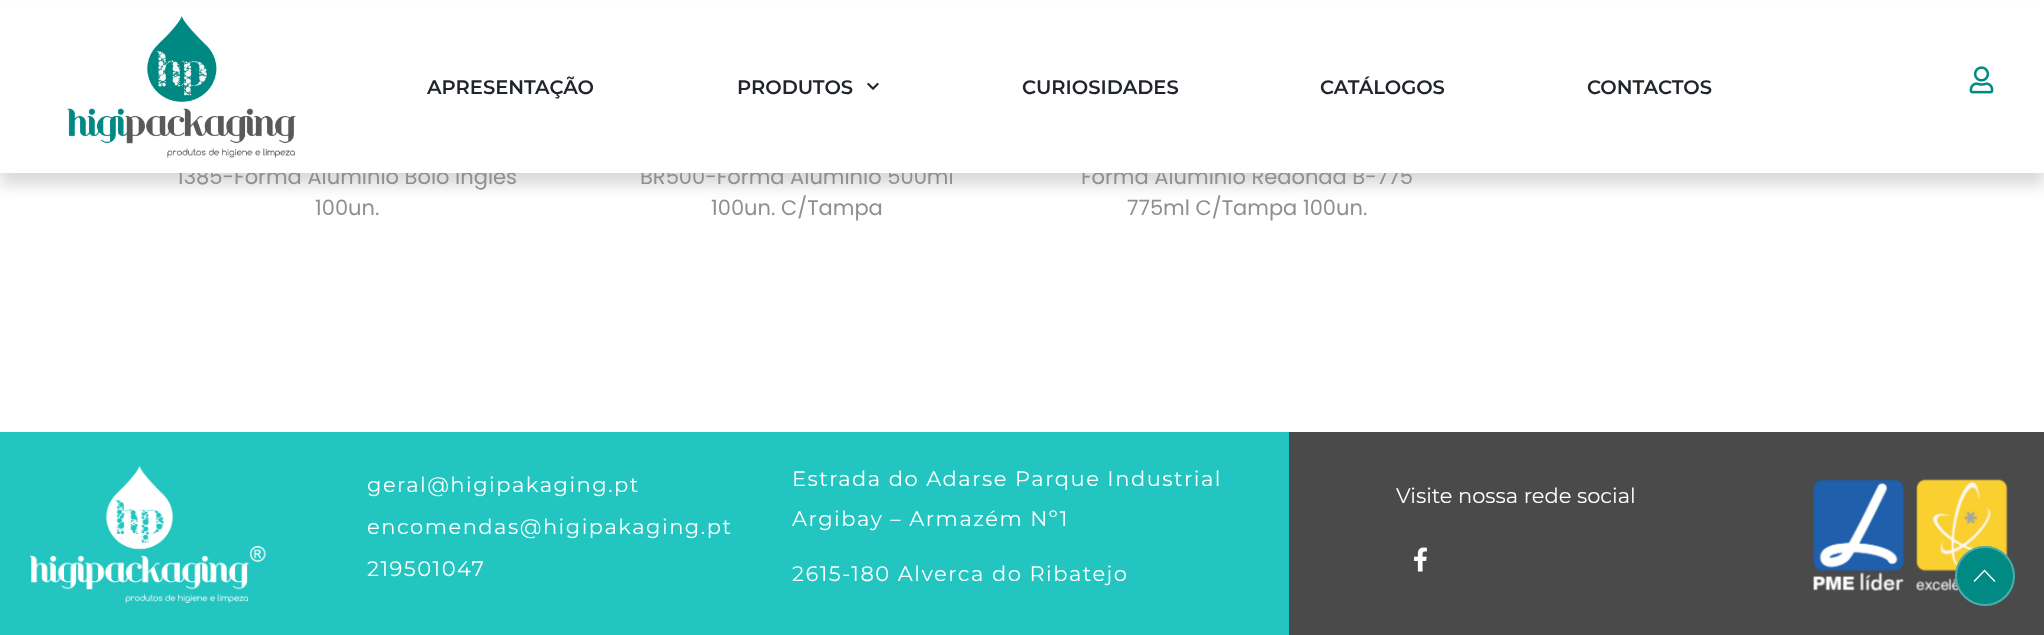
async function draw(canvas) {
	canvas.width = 2044;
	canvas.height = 635;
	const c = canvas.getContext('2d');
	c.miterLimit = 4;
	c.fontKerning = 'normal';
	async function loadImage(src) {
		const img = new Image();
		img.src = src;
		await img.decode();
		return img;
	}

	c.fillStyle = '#fff';
	c.fillRect(0, 0, 2044, 635);
	c.fillStyle = '#00000026';
	c.filter = 'blur(7.5px)';
	c.beginPath();
	c.rect(0, 12, 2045, 173);
	c.fill();
	c.filter = 'none';
	c.font = '21px Poppins';
	c.fillStyle = '#8f8f8f';
	for (const [text, x, y] of [
		['1385-Forma Alumínio Bolo Inglês', 177, 184],
		['BR500-Forma Alumínio 500ml', 640, 184],
		['Forma Alumínio Redonda B-775', 1081, 184],
	]) {
		c.fillText(text, x, y);
	}
	c.fillStyle = '#fff';
	c.fillRect(0, 1, 2044, 172);
	c.drawImage(await loadImage('img1.png'), 67, 15, 229, 143);
	c.font = '600 19.5px Montserrat';
	c.fillStyle = '#212529';
	c.fillText('APRESENTAÇÃO', 427, 94);
	c.fillText('PRODUTOS', 737, 94);
	c.drawImage(await loadImage('img2.png'), 867, 82, 12, 8);
	for (const [text, x, y] of [
		['CURIOSIDADES', 1022, 94],
		['CATÁLOGOS', 1320, 94],
		['CONTACTOS', 1587, 94],
	]) {
		c.fillText(text, x, y);
	}
	c.drawImage(await loadImage('img3.png'), 1969, 66, 25, 28);
	c.font = '21px Poppins';
	c.fillStyle = '#8f8f8f';
	for (const [text, x, y] of [
		['100un.', 315, 215],
		['100un. C/Tampa', 711, 215],
		['775ml C/Tampa 100un.', 1127, 215],
	]) {
		c.fillText(text, x, y);
	}
	c.fillStyle = '#22c5c0';
	c.fillRect(0, 432, 1289, 203);
	c.fillStyle = '#4a4a4a';
	c.fillRect(1289, 432, 755, 203);
	c.drawImage(await loadImage('img4.png'), 30, 465, 236, 138);
	c.letterSpacing = '1.5px';
	c.font = '21px Montserrat';
	c.fillStyle = '#fff';
	for (const [text, x, y] of [
		['geral@higipakaging.pt', 367, 492],
		['encomendas@higipakaging.pt', 367, 534],
		['219501047', 367, 576],
		['Estrada do Adarse Parque Industrial', 792, 486],
		['Argibay – Armazém Nº1', 792, 526],
		['2615-180 Alverca do Ribatejo', 792, 581],
	]) {
		c.fillText(text, x, y);
	}
	c.letterSpacing = '0px';
	c.fillText('Visite nossa rede social', 1396, 503);
	c.drawImage(await loadImage('img5.png'), 1414, 547, 13, 25);
	c.drawImage(await loadImage('img6.png'), 1813, 479, 195, 112);
	c.fillStyle = '#008a83';
	c.beginPath();
	c.arc(1985, 576, 30, 0, 2 * Math.PI);
	c.fill();
	c.beginPath();
	c.arc(1985, 576, 29, 0, 2 * Math.PI);
	c.strokeStyle = '#ffffff4d';
	c.lineWidth = 2;
	c.stroke();
	c.fillStyle = '#fff';
	c.beginPath();
	c.moveTo(1995.5, 581);
	c.lineTo(1994.5, 582);
	c.lineTo(1984.5, 571.5);
	c.lineTo(1974.5, 582);
	c.lineTo(1973.5, 581);
	c.lineTo(1984.5, 569.5);
	c.closePath();
	c.fill();
}

draw(document.querySelector('canvas'));
